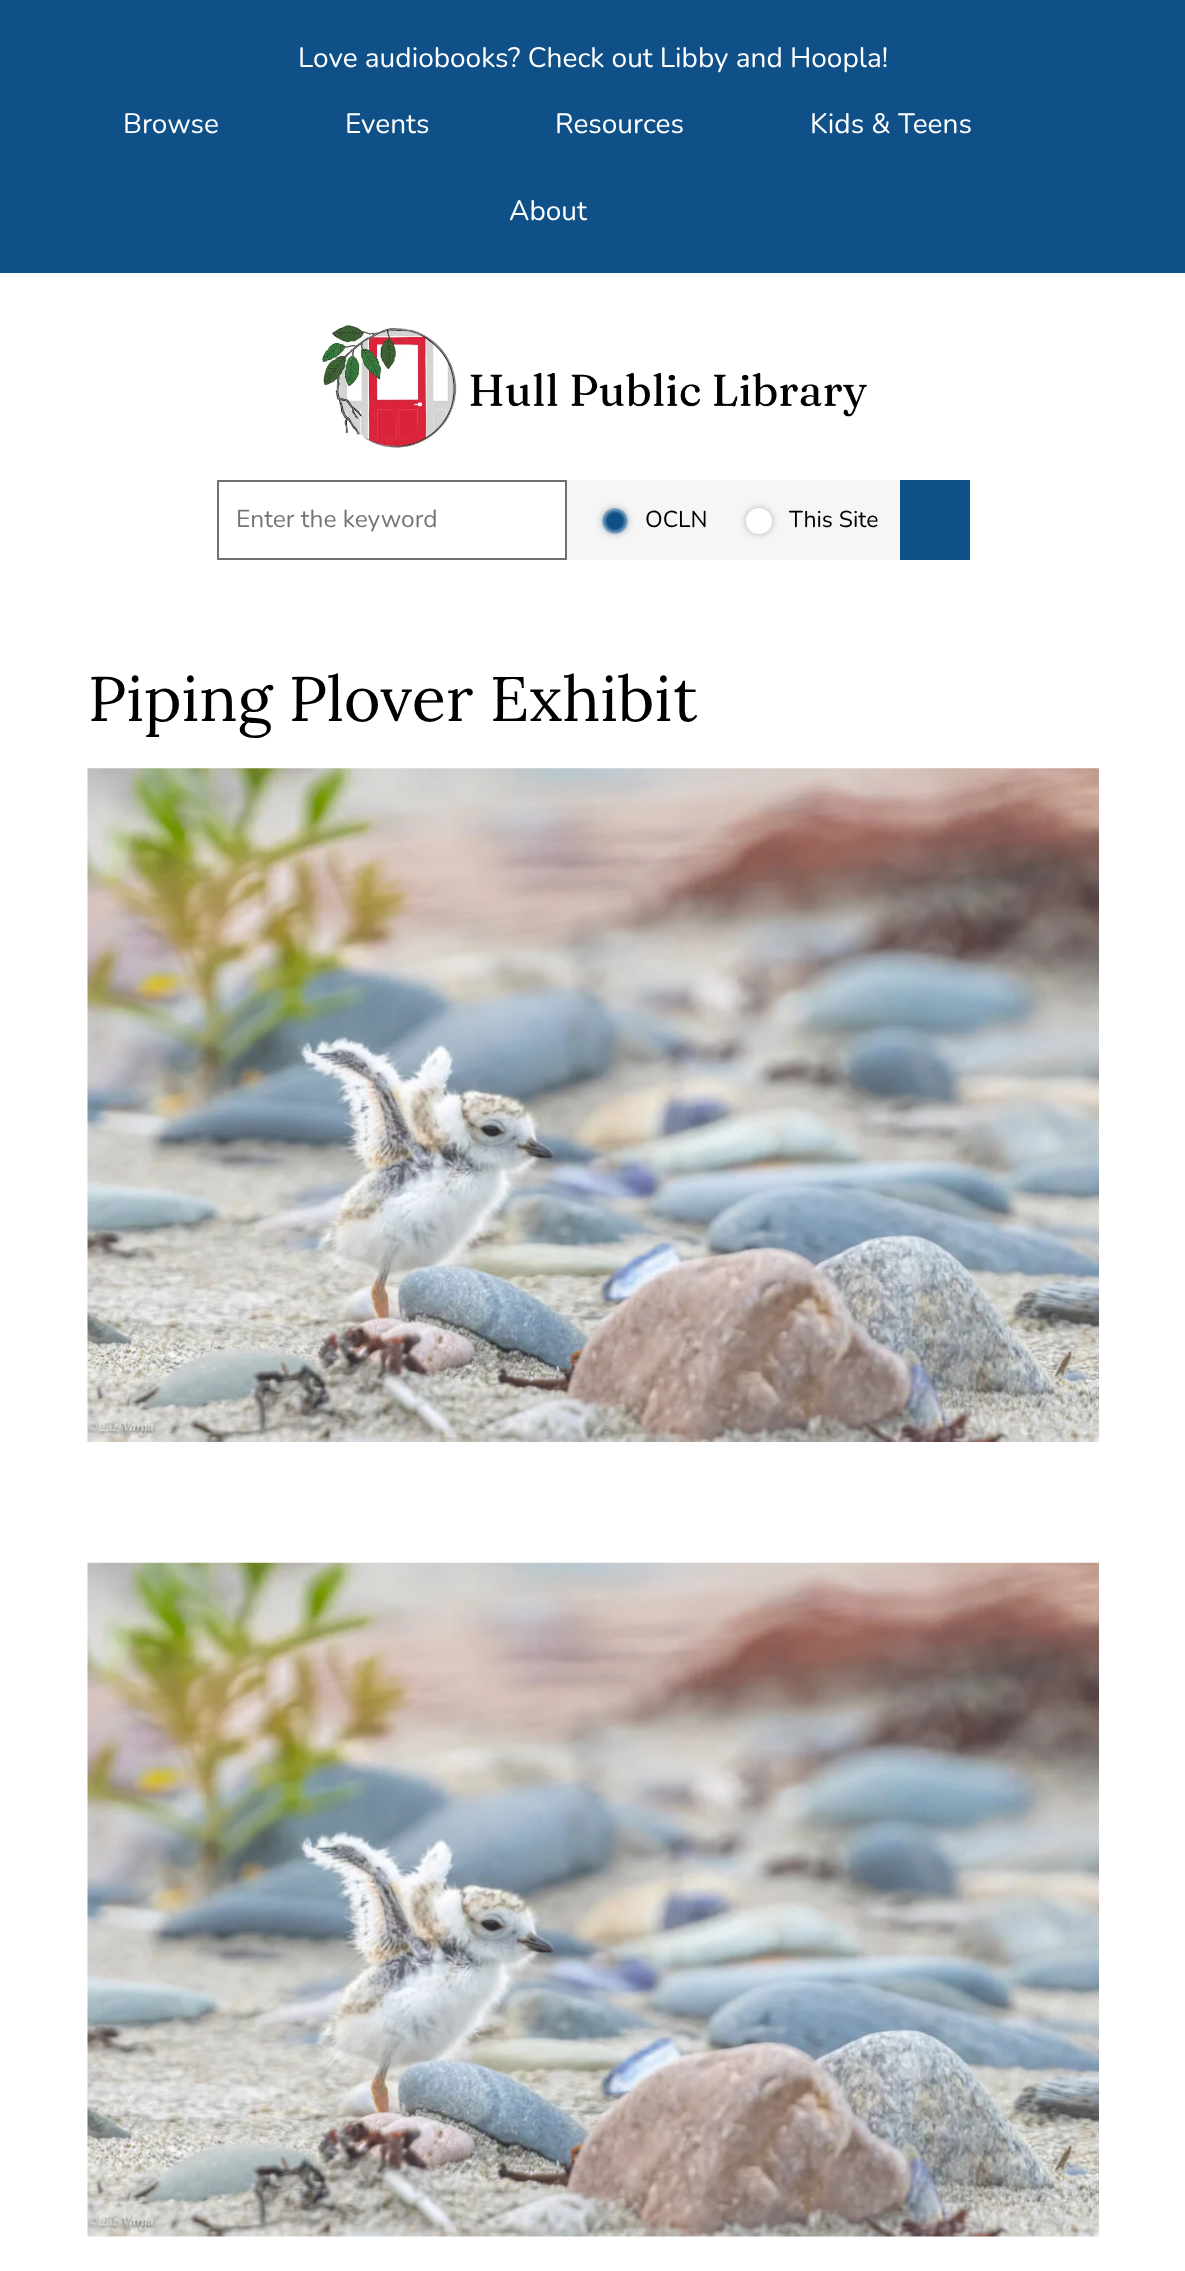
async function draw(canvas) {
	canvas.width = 1185;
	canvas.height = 2271;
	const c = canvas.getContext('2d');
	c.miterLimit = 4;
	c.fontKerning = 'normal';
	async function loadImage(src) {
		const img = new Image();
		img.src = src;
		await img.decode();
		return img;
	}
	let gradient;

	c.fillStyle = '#fff';
	c.fillRect(0, 0, 1185, 2271);
	c.fillStyle = '#0e5087';
	c.fillRect(0, 0, 1185, 273);
	c.font = '28px Nunito';
	c.fillStyle = '#fff';
	for (const [text, x, y] of [
		['Love audiobooks? Check out Libby and Hoopla!', 298, 67],
		['Browse', 123, 133],
		['Events', 345, 133],
		['Resources', 555, 133],
		['Kids & Teens', 810, 133],
		['About', 509, 220],
	]) {
		c.fillText(text, x, y);
	}
	c.drawImage(await loadImage('img1.png'), 321, 325, 546, 123);
	c.strokeStyle = '#707070';
	c.lineWidth = 2;
	c.strokeRect(218, 481, 348, 78);
	c.font = '24.5px Nunito';
	c.fillStyle = '#757575';
	c.fillText('Enter the keyword', 236, 527);
	c.fillStyle = '#f6f6f6';
	c.fillRect(567, 480, 333, 80);
	c.fillStyle = '#57728780';
	c.filter = 'blur(3.5px)';
	c.beginPath();
	c.roundRect(602, 508, 26, 26, 13);
	c.fill();
	c.filter = 'none';
	gradient = c.createRadialGradient(615, 521, 0, 615, 521, 19);
	gradient.addColorStop(0.4, '#0e5087');
	gradient.addColorStop(0.9, '#fff');
	c.fillStyle = gradient;
	c.beginPath();
	c.arc(615, 521, 13, 0, 2 * Math.PI);
	c.fill();
	c.font = '23px Nunito';
	c.fillStyle = '#000';
	c.fillText('OCLN', 645, 527);
	c.fillStyle = '#57728780';
	c.filter = 'blur(3.5px)';
	c.beginPath();
	c.roundRect(746, 508, 26, 26, 13);
	c.fill();
	c.filter = 'none';
	c.fillStyle = '#fff';
	c.beginPath();
	c.arc(759, 521, 13, 0, 2 * Math.PI);
	c.fill();
	c.fillStyle = '#000';
	c.fillText('This Site', 789, 527);
	c.fillStyle = '#0e5087';
	c.fillRect(900, 480, 70, 80);
	c.font = '63px Lora';
	c.fillStyle = '#000';
	c.fillText('Piping Plover Exhibit', 88, 721);
	c.drawImage(await loadImage('img2.png'), 87, 768, 1012, 674);
	c.drawImage(await loadImage('img3.png'), 87, 1562, 1012, 675);
}

draw(document.querySelector('canvas'));
